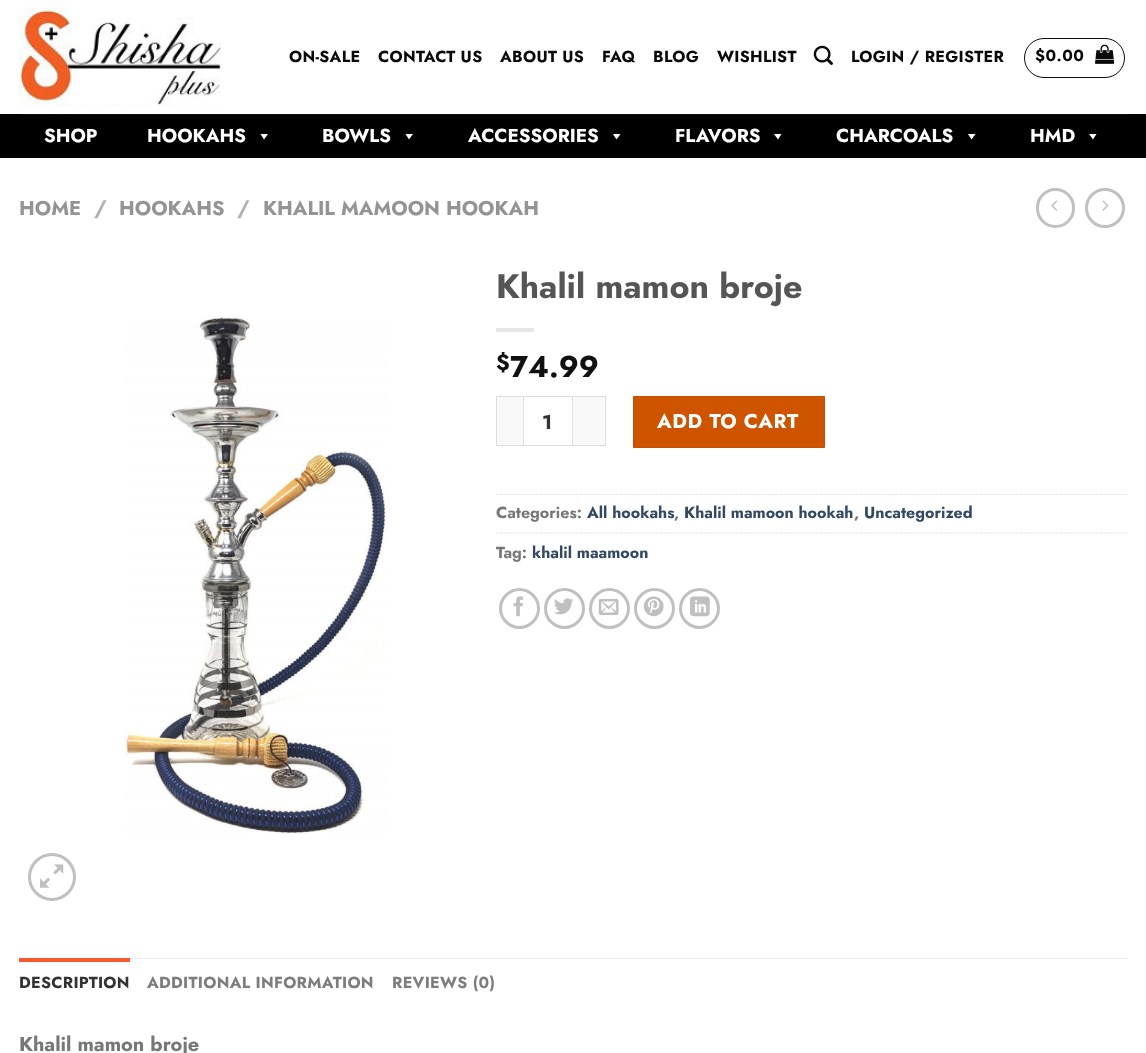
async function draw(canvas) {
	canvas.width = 1146;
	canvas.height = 1053;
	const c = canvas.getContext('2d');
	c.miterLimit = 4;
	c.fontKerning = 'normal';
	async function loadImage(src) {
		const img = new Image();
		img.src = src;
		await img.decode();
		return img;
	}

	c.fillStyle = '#fff';
	c.fillRect(0, 0, 1146, 1053);
	c.drawImage(await loadImage('img1.png'), 18, 7, 203, 99);
	c.letterSpacing = '0.3px';
	c.font = 'bold 16px Jost';
	c.fillStyle = '#0a0a0a';
	for (const [text, x, y] of [
		['ON-SALE', 289, 62],
		['CONTACT US', 378, 62],
		['ABOUT US', 500, 62],
		['FAQ', 602, 62],
		['BLOG', 653, 62],
		['WISHLIST', 717, 62],
	]) {
		c.fillText(text, x, y);
	}
	c.drawImage(await loadImage('img2.png'), 813, 45, 20, 20);
	c.fillText('LOGIN / REGISTER', 851, 62);
	c.beginPath();
	c.roundRect(1024.5, 38.5, 100, 39, 19.5);
	c.strokeStyle = '#0a0a0a';
	c.stroke();
	c.letterSpacing = '0.5px';
	c.fillText('$0.00', 1035, 61);
	c.drawImage(await loadImage('img3.png'), 1095, 44, 20, 20);
	c.fillStyle = '#000';
	c.fillRect(0, 114, 1146, 44);
	c.fillStyle = '#0c0c0c';
	c.fillRect(19, 114, 1109, 1);
	c.letterSpacing = '0px';
	c.font = 'bold 18.75px Jost';
	c.fillStyle = '#fff';
	c.fillText('SHOP', 44, 142);
	c.fillText('HOOKAHS', 147, 142);
	c.beginPath();
	c.moveTo(268, 134);
	c.lineTo(264, 139.5);
	c.lineTo(260.5, 134);
	c.closePath();
	c.fill();
	c.fillText('BOWLS', 322, 142);
	c.beginPath();
	c.moveTo(413, 134);
	c.lineTo(409, 139.5);
	c.lineTo(405.5, 134);
	c.closePath();
	c.fill();
	c.fillText('ACCESSORIES', 468, 142);
	c.beginPath();
	c.moveTo(620.5, 134);
	c.lineTo(616.5, 139.5);
	c.lineTo(613, 134);
	c.closePath();
	c.fill();
	c.fillText('FLAVORS', 675, 142);
	c.beginPath();
	c.moveTo(781.5, 134);
	c.lineTo(778, 139.5);
	c.lineTo(774, 134);
	c.closePath();
	c.fill();
	c.fillText('CHARCOALS', 836, 142);
	c.beginPath();
	c.moveTo(975.5, 134);
	c.lineTo(971.5, 139.5);
	c.lineTo(968, 134);
	c.closePath();
	c.fill();
	c.fillText('HMD', 1030, 142);
	c.beginPath();
	c.moveTo(1096.5, 134);
	c.lineTo(1093, 139.5);
	c.lineTo(1089, 134);
	c.closePath();
	c.fill();
	c.font = 'bold 20px Jost';
	c.fillStyle = '#949494';
	c.fillText('HOME', 19, 215);
	c.font = 'bold 21px Jost';
	c.fillStyle = '#b2b2b2';
	c.fillText('/', 94, 215);
	c.font = 'bold 20px Jost';
	c.fillStyle = '#949494';
	c.fillText('HOOKAHS', 119, 215);
	c.font = 'bold 21px Jost';
	c.fillStyle = '#b2b2b2';
	c.fillText('/', 237, 215);
	c.font = 'bold 20px Jost';
	c.fillStyle = '#949494';
	c.fillText('KHALIL MAMOON HOOKAH', 263, 215);
	c.beginPath();
	c.roundRect(1037.5, 189.5, 36, 37, 18);
	c.strokeStyle = '#c0c0c0';
	c.lineWidth = 3;
	c.stroke();
	c.drawImage(await loadImage('img4.png'), 1051, 200, 7, 11);
	c.beginPath();
	c.arc(1105, 208, 18.5, 0, 2 * Math.PI);
	c.stroke();
	c.drawImage(await loadImage('img5.png'), 1102, 200, 7, 11);
	c.drawImage(await loadImage('img6.png'), 124, 316, 266, 519);
	c.beginPath();
	c.arc(52, 877, 22.5, 0, 2 * Math.PI);
	c.stroke();
	c.drawImage(await loadImage('img7.png'), 40, 864, 24, 24);
	c.font = 'bold 34px Jost';
	c.fillStyle = '#555';
	c.fillText('Khalil mamon broje', 496, 298);
	c.fillStyle = '#e6e6e6';
	c.fillRect(496, 328, 38, 4);
	c.font = 'bold 22px Jost';
	c.fillStyle = '#111';
	c.fillText('$', 496, 370);
	c.font = 'bold 30px Jost';
	c.fillText('74.99', 510, 377);
	for (const [x, y, w, h, color] of [
		[497, 397, 26, 48, '#f9f9f9'],
		[496, 396, 27, 1, '#ddd'],
		[496, 445, 27, 1, '#ddd'],
		[496, 396, 1, 50, '#ddd'],
	]) {
		c.fillStyle = color;
		c.fillRect(x, y, w, h);
	}
	c.strokeStyle = '#ddd';
	c.lineWidth = 1;
	c.strokeRect(523.5, 396.5, 49, 49);
	c.font = 'bold 20px Jost';
	c.fillStyle = '#333';
	c.fillText('1', 542, 429);
	for (const [x, y, w, h, color] of [
		[573, 397, 32, 48, '#f9f9f9'],
		[573, 396, 33, 1, '#ddd'],
		[605, 396, 1, 50, '#ddd'],
		[573, 445, 33, 1, '#ddd'],
	]) {
		c.fillStyle = color;
		c.fillRect(x, y, w, h);
	}
	c.fillStyle = '#ce5400';
	c.beginPath();
	c.rect(633.5, 396.5, 191, 51);
	c.fill();
	c.strokeStyle = '#c45000';
	c.stroke();
	c.letterSpacing = '0.6px';
	c.fillStyle = '#fff';
	c.fillText('ADD TO CART', 657, 428);
	c.beginPath();
	c.moveTo(496, 494.5);
	c.lineTo(1127.5, 494.5);
	c.strokeStyle = '#ddd';
	c.lineWidth = 1.2;
	c.setLineDash([1.25, 1.25]);
	c.stroke();
	c.letterSpacing = '0px';
	c.font = 'bold 16px Jost';
	c.fillStyle = '#777';
	c.fillText('Categories:', 496, 518);
	c.fillStyle = '#334862';
	c.fillText('All hookahs', 587, 518);
	c.fillStyle = '#777';
	c.fillText(',', 674, 518);
	c.fillStyle = '#334862';
	c.fillText('Khalil mamoon hookah', 684, 518);
	c.fillStyle = '#777';
	c.fillText(',', 854, 518);
	c.fillStyle = '#334862';
	c.fillText('Uncategorized', 864, 518);
	c.beginPath();
	c.moveTo(496, 533);
	c.lineTo(1127.5, 533);
	c.stroke();
	c.fillStyle = '#777';
	c.fillText('Tag:', 496, 558);
	c.fillStyle = '#334862';
	c.fillText('khalil maamoon', 532, 558);
	c.beginPath();
	c.arc(519.5, 608.5, 19, 0, 2 * Math.PI);
	c.strokeStyle = '#c0c0c0';
	c.lineWidth = 3;
	c.setLineDash([]);
	c.stroke();
	c.drawImage(await loadImage('img8.png'), 513, 596, 10, 21);
	c.beginPath();
	c.arc(564.5, 608.5, 19, 0, 2 * Math.PI);
	c.stroke();
	c.drawImage(await loadImage('img9.png'), 554, 598, 20, 17);
	c.beginPath();
	c.arc(609.5, 608.5, 19, 0, 2 * Math.PI);
	c.stroke();
	c.drawImage(await loadImage('img10.png'), 598, 598, 21, 17);
	c.beginPath();
	c.arc(654.5, 608.5, 19, 0, 2 * Math.PI);
	c.stroke();
	c.drawImage(await loadImage('img11.png'), 643, 596, 21, 21);
	c.beginPath();
	c.arc(699.5, 608.5, 19, 0, 2 * Math.PI);
	c.stroke();
	c.drawImage(await loadImage('img12.png'), 690, 596, 20, 21);
	c.fillStyle = '#ececec';
	c.fillRect(130, 958, 998, 1);
	c.fillStyle = '#f45a2c';
	c.fillRect(19, 958, 111, 4);
	c.letterSpacing = '0.3px';
	c.fillStyle = '#333';
	c.fillText('DESCRIPTION', 19, 988);
	c.fillStyle = '#7d7d7d';
	c.fillText('ADDITIONAL INFORMATION', 147, 988);
	c.fillText('REVIEWS (0)', 392, 988);
	c.letterSpacing = '0px';
	c.font = 'bold 20px Jost';
	c.fillStyle = '#777';
	c.fillText('Khalil mamon broje', 19, 1051);
}

draw(document.querySelector('canvas'));
